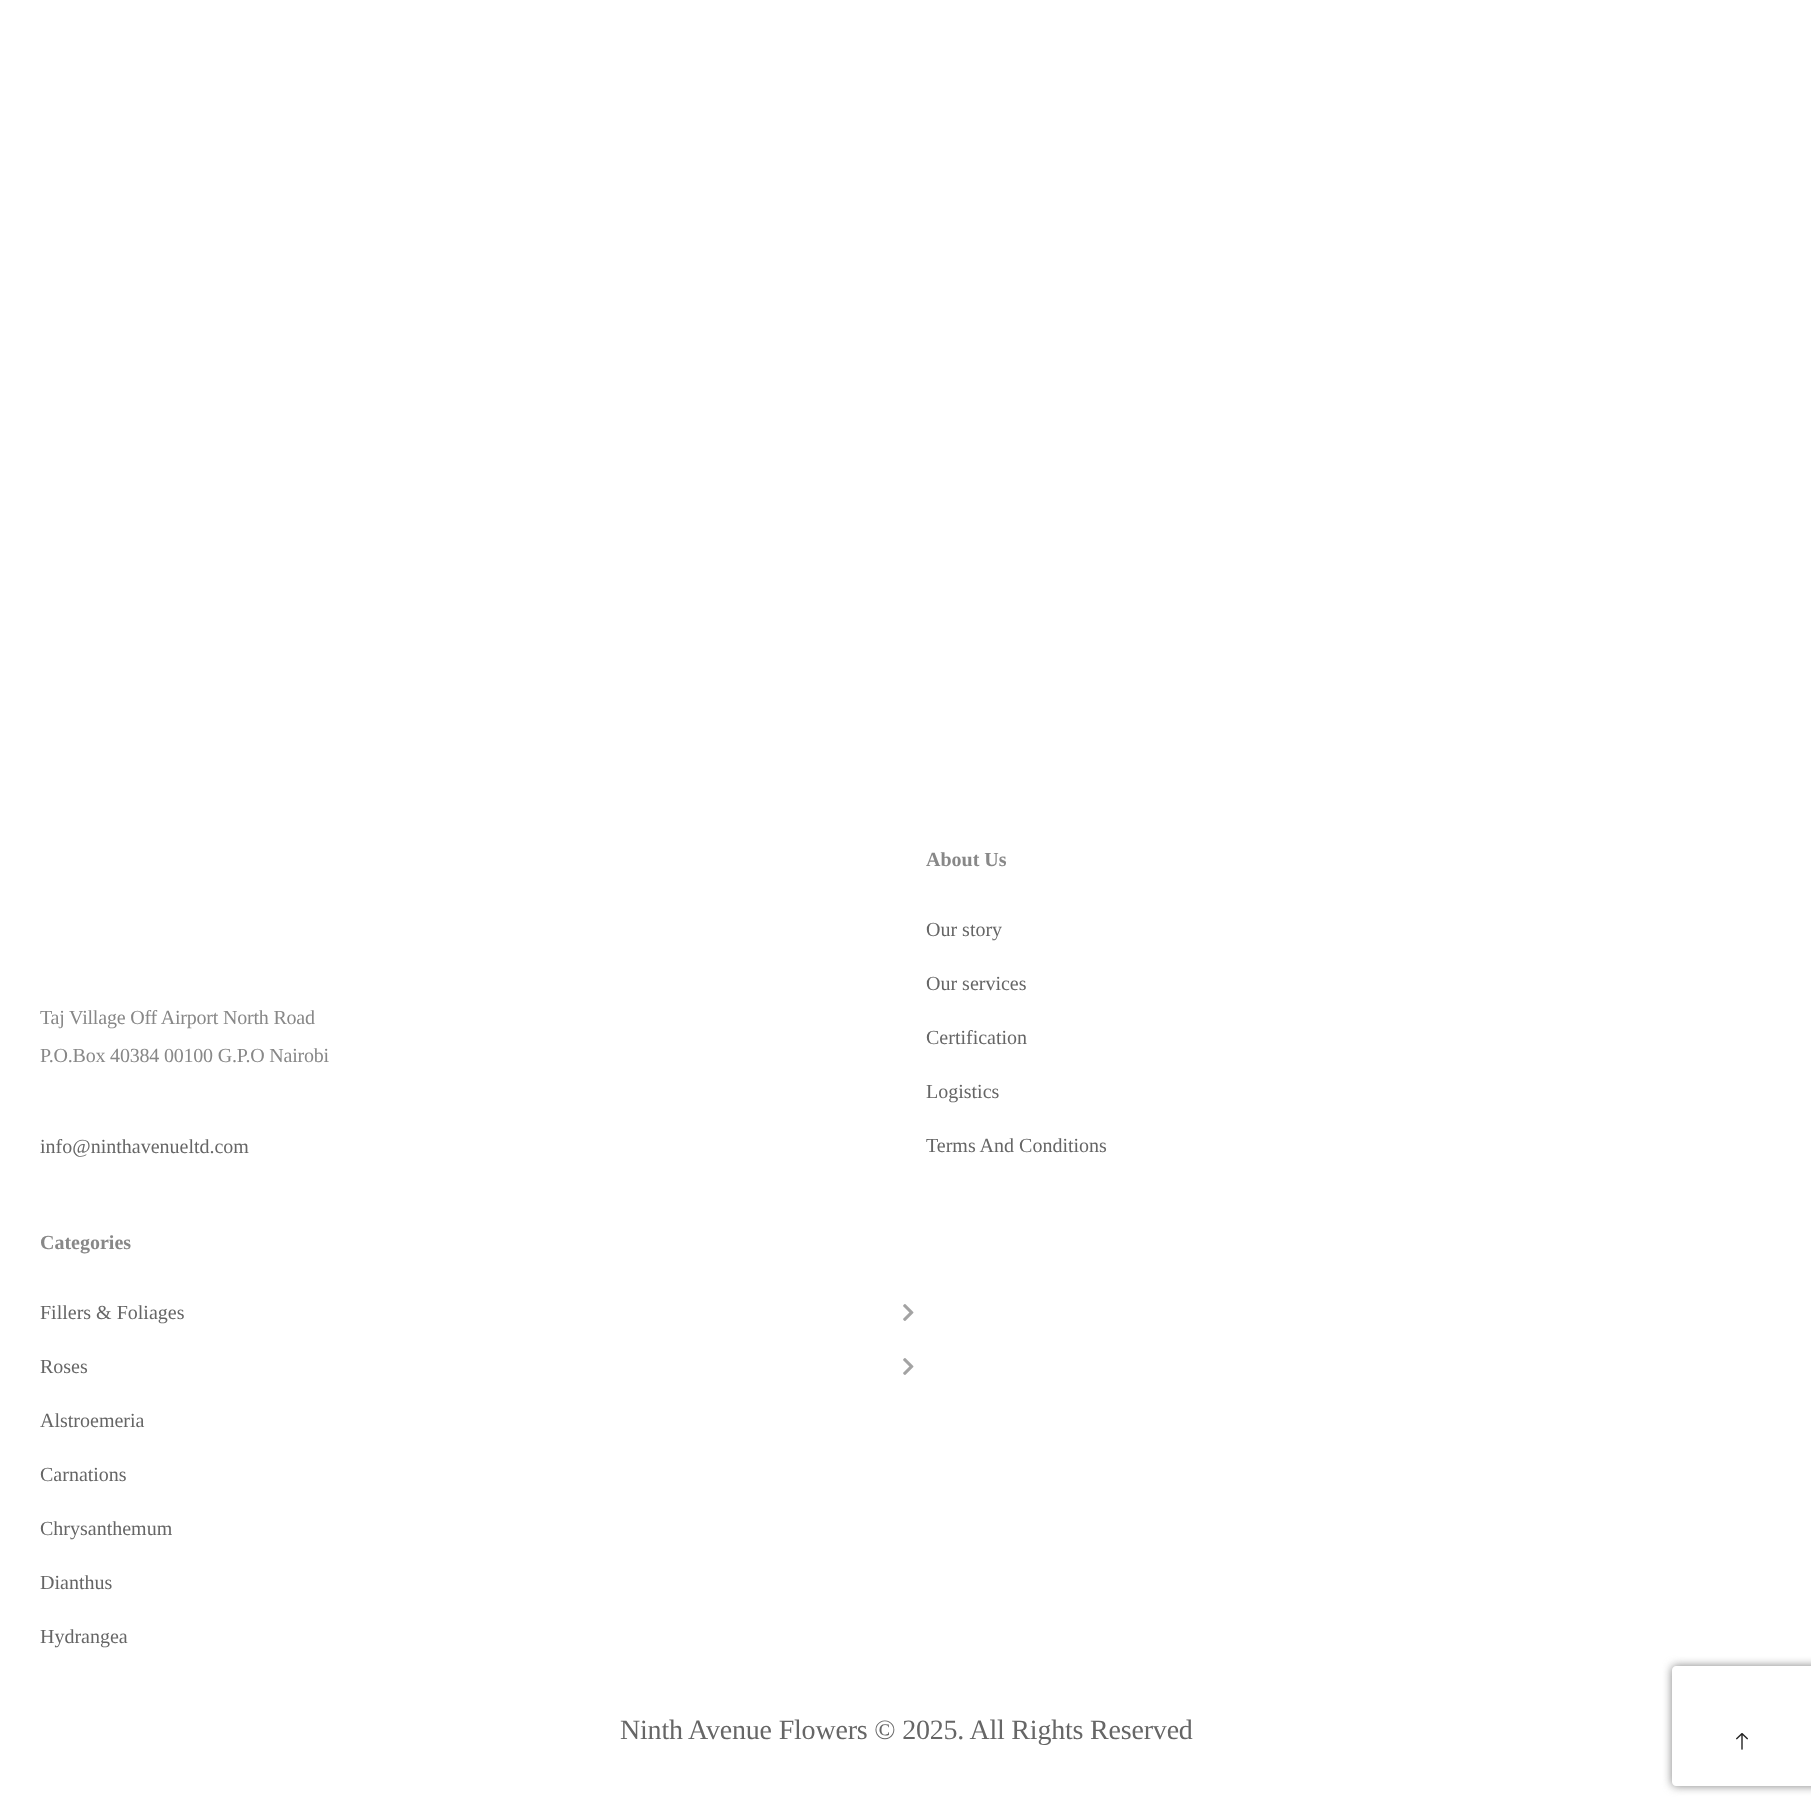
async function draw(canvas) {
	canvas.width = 1811;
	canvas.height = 1813;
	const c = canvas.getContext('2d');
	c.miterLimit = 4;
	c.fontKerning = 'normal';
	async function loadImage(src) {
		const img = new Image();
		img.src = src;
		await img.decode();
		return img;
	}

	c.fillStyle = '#fff';
	c.fillRect(0, 0, 1811, 1813);
	c.letterSpacing = '-0.2px';
	c.font = '20px Liberation Serif';
	c.fillStyle = '#888';
	c.fillText('Taj Village Off Airport North Road', 40, 1024);
	c.fillText('P.O.Box 40384 00100 G.P.O Nairobi', 40, 1062);
	c.letterSpacing = '0px';
	c.fillStyle = '#666';
	c.fillText('info@ninthavenueltd.com', 40, 1153);
	c.font = 'bold 20px Liberation Serif';
	c.fillStyle = '#888';
	c.fillText('About Us', 926, 866);
	c.font = '20px Liberation Serif';
	c.fillStyle = '#666';
	for (const [text, x, y] of [
		['Our story', 926, 936],
		['Our services', 926, 990],
		['Certification', 926, 1044],
		['Logistics', 926, 1098],
		['Terms And Conditions', 926, 1152],
	]) {
		c.fillText(text, x, y);
	}
	c.font = 'bold 20px Liberation Serif';
	c.fillStyle = '#888';
	c.fillText('Categories', 40, 1249);
	c.font = '20px Liberation Serif';
	c.fillStyle = '#666';
	c.fillText('Fillers & Foliages', 40, 1319);
	c.drawImage(await loadImage('img1.png'), 903, 1304, 11, 17);
	c.fillText('Roses', 40, 1373);
	c.drawImage(await loadImage('img1.png'), 903, 1358, 11, 17);
	for (const [text, x, y] of [
		['Alstroemeria', 40, 1427],
		['Carnations', 40, 1481],
		['Chrysanthemum', 40, 1535],
		['Dianthus', 40, 1589],
		['Hydrangea', 40, 1643],
	]) {
		c.fillText(text, x, y);
	}
	c.letterSpacing = '-0.2px';
	c.font = '28px Liberation Serif';
	c.fillText('Ninth Avenue Flowers © 2025. All Rights Reserved', 620, 1739);
	c.save();
	c.beginPath();
	c.moveTo(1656, 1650);
	c.lineTo(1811, 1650);
	c.lineTo(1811, 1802);
	c.lineTo(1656, 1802);
	c.closePath();
	c.moveTo(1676, 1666);
	c.lineTo(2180, 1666);
	c.bezierCurveTo(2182, 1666, 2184, 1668, 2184, 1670);
	c.lineTo(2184, 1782);
	c.bezierCurveTo(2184, 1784, 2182, 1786, 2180, 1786);
	c.lineTo(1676, 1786);
	c.bezierCurveTo(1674, 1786, 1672, 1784, 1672, 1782);
	c.lineTo(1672, 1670);
	c.bezierCurveTo(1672, 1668, 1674, 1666, 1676, 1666);
	c.closePath();
	c.clip('evenodd');
	c.fillStyle = '#808080';
	c.filter = 'blur(5px)';
	c.beginPath();
	c.roundRect(1672, 1666, 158, 120, 4);
	c.fill();
	c.filter = 'none';
	c.restore();
	c.drawImage(await loadImage('img2.png'), 1736, 1733, 12, 17);
}

draw(document.querySelector('canvas'));
